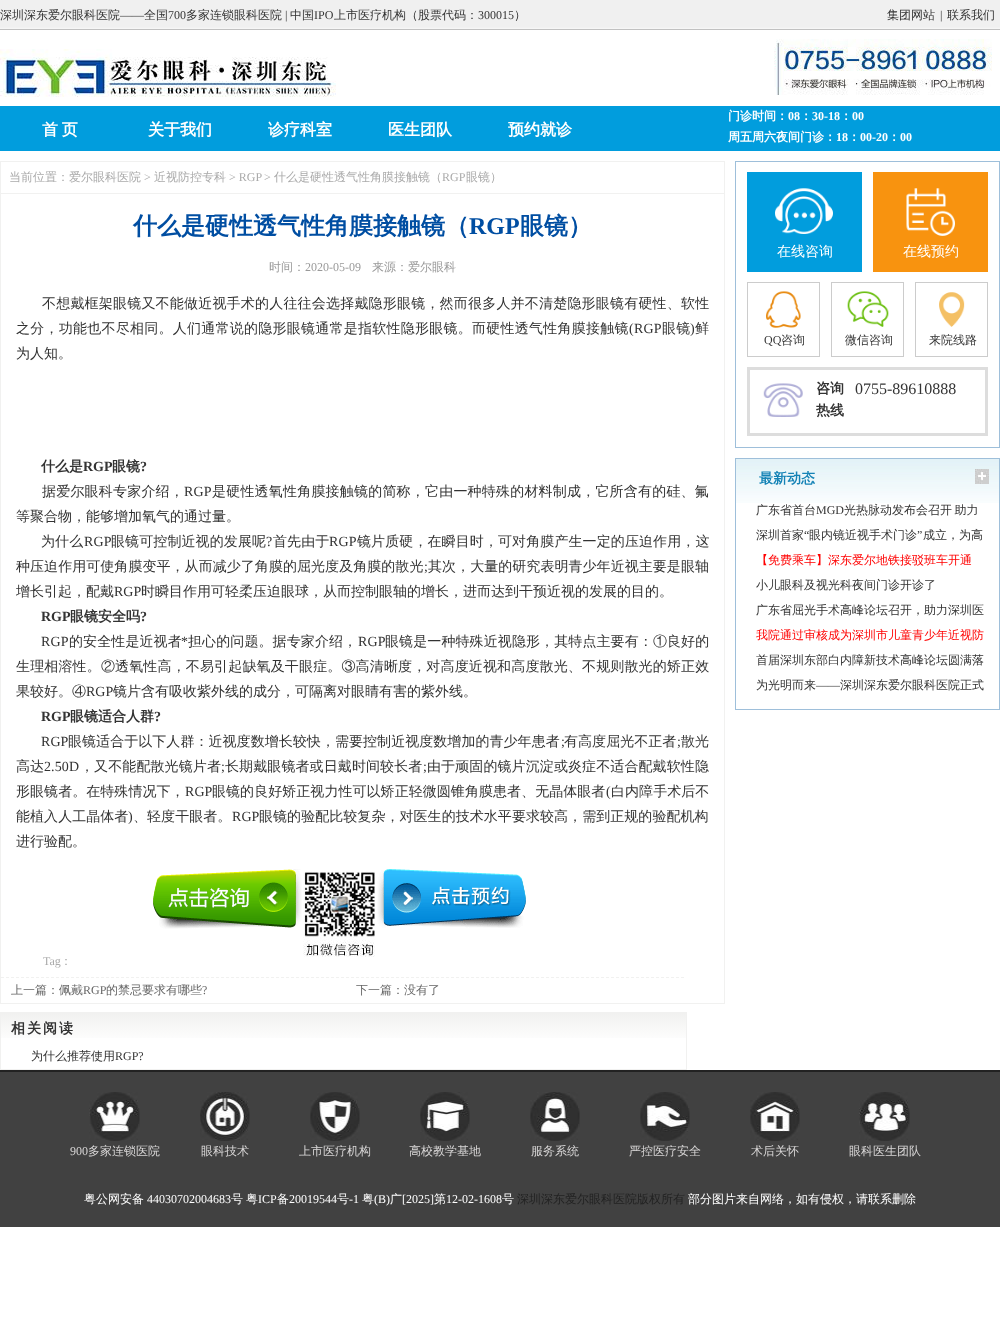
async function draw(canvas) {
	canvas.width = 1000;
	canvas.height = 1343;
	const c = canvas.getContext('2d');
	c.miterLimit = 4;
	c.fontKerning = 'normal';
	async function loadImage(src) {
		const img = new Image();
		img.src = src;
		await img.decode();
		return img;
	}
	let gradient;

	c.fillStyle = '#fff';
	c.fillRect(0, 0, 1000, 1343);
	c.drawImage(await loadImage('img1.png'), 0, 0, 1000, 30);
	c.font = '500 12px WenQuanYi Zen Hei';
	c.fillStyle = '#333';
	c.fillText('深圳深东爱尔眼科医院', 0, 19);
	c.font = '12px Liberation Serif';
	c.fillText('——', 120, 19);
	c.font = '500 12px WenQuanYi Zen Hei';
	c.fillText('全国', 144, 19);
	c.font = '12px Liberation Serif';
	c.fillText('700', 168, 19);
	c.font = '500 12px WenQuanYi Zen Hei';
	c.fillText('多家连锁眼科医院', 186, 19);
	c.font = '12px Liberation Serif';
	c.fillText('|', 285, 19);
	c.font = '500 12px WenQuanYi Zen Hei';
	c.fillText('中国', 290, 19);
	c.font = '12px Liberation Serif';
	c.fillText('IPO', 314, 19);
	c.font = '500 12px WenQuanYi Zen Hei';
	c.fillText('上市医疗机构（股票代码：', 334, 19);
	c.font = '12px Liberation Serif';
	c.fillText('300015', 478, 19);
	c.font = '500 12px WenQuanYi Zen Hei';
	c.fillText('）', 514, 19);
	c.fillText('集团网站', 887, 19);
	c.font = '12px Liberation Serif';
	c.fillText('|', 940, 19);
	c.font = '500 12px WenQuanYi Zen Hei';
	c.fillText('联系我们', 947, 19);
	c.drawImage(await loadImage('img2.png'), 774, 39, 218, 56);
	c.drawImage(await loadImage('img3.png'), 0, 49, 336, 48);
	c.fillStyle = '#019ddd';
	c.fillRect(0, 106, 1000, 45);
	c.wordSpacing = '-1px';
	c.font = 'bold 16px WenQuanYi Zen Hei';
	c.fillStyle = '#fff';
	c.fillText('首 页', 42, 135);
	c.wordSpacing = '0px';
	for (const [text, x, y] of [
		['关于我们', 148, 135],
		['诊疗科室', 268, 135],
		['医生团队', 388, 135],
		['预约就诊', 508, 135],
	]) {
		c.fillText(text, x, y);
	}
	c.font = 'bold 12px WenQuanYi Zen Hei';
	c.fillText('门诊时间：', 728, 120);
	c.font = 'bold 12px Liberation Serif';
	c.fillText('08', 788, 120);
	c.font = 'bold 12px WenQuanYi Zen Hei';
	c.fillText('：', 800, 120);
	c.font = 'bold 12px Liberation Serif';
	c.fillText('30-18', 812, 120);
	c.font = 'bold 12px WenQuanYi Zen Hei';
	c.fillText('：', 840, 120);
	c.font = 'bold 12px Liberation Serif';
	c.fillText('00', 852, 120);
	c.font = 'bold 12px WenQuanYi Zen Hei';
	c.fillText('周五周六夜间门诊：', 728, 141);
	c.font = 'bold 12px Liberation Serif';
	c.fillText('18', 836, 141);
	c.font = 'bold 12px WenQuanYi Zen Hei';
	c.fillText('：', 848, 141);
	c.font = 'bold 12px Liberation Serif';
	c.fillText('00-20', 860, 141);
	c.font = 'bold 12px WenQuanYi Zen Hei';
	c.fillText('：', 888, 141);
	c.font = 'bold 12px Liberation Serif';
	c.fillText('00', 900, 141);
	c.strokeStyle = '#f1f1f0';
	c.strokeRect(0.5, 161.5, 724, 842);
	c.fillStyle = '#f1f1f0';
	c.fillRect(1, 193, 723, 1);
	c.font = '500 12px WenQuanYi Zen Hei';
	c.fillStyle = '#aaa';
	c.fillText('当前位置：爱尔眼科医院', 9, 181);
	c.font = '12px Liberation Serif';
	c.fillText('>', 144, 181);
	c.font = '500 12px WenQuanYi Zen Hei';
	c.fillText('近视防控专科', 154, 181);
	c.font = '12px Liberation Serif';
	c.fillText('> RGP', 229, 181);
	c.fillText('>', 264, 181);
	c.font = '500 12px WenQuanYi Zen Hei';
	c.fillText('什么是硬性透气性角膜接触镜（', 274, 181);
	c.font = '12px Liberation Serif';
	c.fillText('RGP', 442, 181);
	c.font = '500 12px WenQuanYi Zen Hei';
	c.fillText('眼镜）', 466, 181);
	c.font = 'bold 24px WenQuanYi Zen Hei';
	c.fillStyle = '#004ea2';
	c.fillText('什么是硬性透气性角膜接触镜（', 133, 234);
	c.font = 'bold 24px Liberation Serif';
	c.fillText('RGP', 469, 234);
	c.font = 'bold 24px WenQuanYi Zen Hei';
	c.fillText('眼镜）', 520, 234);
	c.font = '500 12px WenQuanYi Zen Hei';
	c.fillStyle = '#999';
	c.fillText('时间：', 269, 271);
	c.font = '12px Liberation Serif';
	c.fillText('2020-05-09', 305, 271);
	c.font = '500 12px WenQuanYi Zen Hei';
	c.fillText('来源：爱尔眼科', 372, 271);
	c.letterSpacing = '0.2px';
	c.font = '500 14px WenQuanYi Zen Hei';
	c.fillStyle = '#333';
	c.fillText('不想戴框架眼镜又不能做近视手术的人往往会选择戴隐形眼镜，然而很多人并不清楚隐形眼镜有硬性、软性', 42, 308);
	c.letterSpacing = '0.25px';
	c.fillText('之分，功能也不尽相同。人们通常说的隐形眼镜通常是指软性隐形眼镜。而硬性透气性角膜接触镜', 16, 333);
	c.font = '14px Liberation Serif';
	c.fillText('(RGP', 629, 333);
	c.font = '500 14px WenQuanYi Zen Hei';
	c.fillText('眼镜', 662, 333);
	c.font = '14px Liberation Serif';
	c.fillText(')', 690, 333);
	c.font = '500 14px WenQuanYi Zen Hei';
	c.fillText('鲜', 695, 333);
	c.letterSpacing = '0px';
	c.fillText('为人知。', 16, 358);
	c.font = 'bold 14px WenQuanYi Zen Hei';
	c.fillText('什么是', 41, 471);
	c.font = 'bold 14px Liberation Serif';
	c.fillText('RGP', 83, 471);
	c.font = 'bold 14px WenQuanYi Zen Hei';
	c.fillText('眼镜', 112, 471);
	c.font = 'bold 14px Liberation Serif';
	c.fillText('?', 140, 471);
	c.letterSpacing = '0.2px';
	c.font = '500 14px WenQuanYi Zen Hei';
	c.fillText('据爱尔眼科专家介绍，', 42, 496);
	c.font = '14px Liberation Serif';
	c.fillText('RGP', 184, 496);
	c.font = '500 14px WenQuanYi Zen Hei';
	c.fillText('是硬性透氧性角膜接触镜的简称，它由一种特殊的材料制成，它所含有的硅、氟', 212, 496);
	c.letterSpacing = '0px';
	c.fillText('等聚合物，能够增加氧气的通过量。', 16, 521);
	c.letterSpacing = '0.1px';
	c.fillText('为什么', 41, 546);
	c.font = '14px Liberation Serif';
	c.fillText('RGP', 84, 546);
	c.font = '500 14px WenQuanYi Zen Hei';
	c.fillText('眼镜可控制近视的发展呢', 111, 546);
	c.font = '14px Liberation Serif';
	c.fillText('?', 266, 546);
	c.font = '500 14px WenQuanYi Zen Hei';
	c.fillText('首先由于', 273, 546);
	c.font = '14px Liberation Serif';
	c.fillText('RGP', 329, 546);
	c.font = '500 14px WenQuanYi Zen Hei';
	c.fillText('镜片质硬，在瞬目时，可对角膜产生一定的压迫作用，这', 357, 546);
	c.letterSpacing = '0.05px';
	c.fillText('种压迫作用可使角膜变平，从而减少了角膜的屈光度及角膜的散光', 16, 571);
	c.font = '14px Liberation Serif';
	c.fillText(';', 424, 571);
	c.font = '500 14px WenQuanYi Zen Hei';
	c.fillText('其次，大量的研究表明青少年近视主要是眼轴', 428, 571);
	c.letterSpacing = '0px';
	c.fillText('增长引起，配戴', 16, 596);
	c.font = '14px Liberation Serif';
	c.fillText('RGP', 114, 596);
	c.font = '500 14px WenQuanYi Zen Hei';
	c.fillText('时瞬目作用可轻柔压迫眼球，从而控制眼轴的增长，进而达到干预近视的发展的目的。', 141, 596);
	c.font = 'bold 14px Liberation Serif';
	c.fillText('RGP', 41, 621);
	c.font = 'bold 14px WenQuanYi Zen Hei';
	c.fillText('眼镜安全吗', 70, 621);
	c.font = 'bold 14px Liberation Serif';
	c.fillText('?', 140, 621);
	c.letterSpacing = '0.1px';
	c.font = '14px Liberation Serif';
	c.fillText('RGP', 41, 646);
	c.font = '500 14px WenQuanYi Zen Hei';
	c.fillText('的安全性是近视者', 69, 646);
	c.font = '14px Liberation Serif';
	c.fillText('*', 181, 646);
	c.font = '500 14px WenQuanYi Zen Hei';
	c.fillText('担心的问题。据专家介绍，', 188, 646);
	c.font = '14px Liberation Serif';
	c.fillText('RGP', 358, 646);
	c.font = '500 14px WenQuanYi Zen Hei';
	c.fillText('眼镜是一种特殊近视隐形，其特点主要有：①良好的', 385, 646);
	c.letterSpacing = '0.15px';
	c.fillText('生理相溶性。②透氧性高，不易引起缺氧及干眼症。③高清晰度，对高度近视和高度散光、不规则散光的矫正效', 16, 671);
	c.letterSpacing = '0px';
	c.fillText('果较好。④', 16, 696);
	c.font = '14px Liberation Serif';
	c.fillText('RGP', 86, 696);
	c.font = '500 14px WenQuanYi Zen Hei';
	c.fillText('镜片含有吸收紫外线的成分，可隔离对眼睛有害的紫外线。', 113, 696);
	c.font = 'bold 14px Liberation Serif';
	c.fillText('RGP', 41, 721);
	c.font = 'bold 14px WenQuanYi Zen Hei';
	c.fillText('眼镜适合人群', 70, 721);
	c.font = 'bold 14px Liberation Serif';
	c.fillText('?', 154, 721);
	c.letterSpacing = '0.05px';
	c.font = '14px Liberation Serif';
	c.fillText('RGP', 41, 746);
	c.font = '500 14px WenQuanYi Zen Hei';
	c.fillText('眼镜适合于以下人群：近视度数增长较快，需要控制近视度数增加的青少年患者', 68, 746);
	c.font = '14px Liberation Serif';
	c.fillText(';', 561, 746);
	c.font = '500 14px WenQuanYi Zen Hei';
	c.fillText('有高度屈光不正者', 564, 746);
	c.font = '14px Liberation Serif';
	c.fillText(';', 677, 746);
	c.font = '500 14px WenQuanYi Zen Hei';
	c.fillText('散光', 681, 746);
	c.letterSpacing = '0.1px';
	c.fillText('高达', 16, 771);
	c.font = '14px Liberation Serif';
	c.fillText('2.50D', 44, 771);
	c.font = '500 14px WenQuanYi Zen Hei';
	c.fillText('，又不能配散光镜片者', 80, 771);
	c.font = '14px Liberation Serif';
	c.fillText(';', 221, 771);
	c.font = '500 14px WenQuanYi Zen Hei';
	c.fillText('长期戴眼镜者或日戴时间较长者', 225, 771);
	c.font = '14px Liberation Serif';
	c.fillText(';', 423, 771);
	c.font = '500 14px WenQuanYi Zen Hei';
	c.fillText('由于顽固的镜片沉淀或炎症不适合配戴软性隐', 427, 771);
	c.letterSpacing = '0.05px';
	c.fillText('形眼镜者。在特殊情况下，', 16, 796);
	c.font = '14px Liberation Serif';
	c.fillText('RGP', 185, 796);
	c.font = '500 14px WenQuanYi Zen Hei';
	c.fillText('眼镜的良好矫正视力性可以矫正轻微圆锥角膜患者、无晶体眼者', 212, 796);
	c.font = '14px Liberation Serif';
	c.fillText('(', 606, 796);
	c.font = '500 14px WenQuanYi Zen Hei';
	c.fillText('白内障手术后不', 611, 796);
	c.fillText('能植入人工晶体者', 16, 821);
	c.font = '14px Liberation Serif';
	c.fillText(')', 128, 821);
	c.font = '500 14px WenQuanYi Zen Hei';
	c.fillText('、轻度干眼者。', 133, 821);
	c.font = '14px Liberation Serif';
	c.fillText('RGP', 232, 821);
	c.font = '500 14px WenQuanYi Zen Hei';
	c.fillText('眼镜的验配比较复杂，对医生的技术水平要求较高，需到正规的验配机构', 259, 821);
	c.letterSpacing = '0px';
	c.fillText('进行验配。', 16, 846);
	c.drawImage(await loadImage('img4.png'), 153, 869, 149, 60);
	c.drawImage(await loadImage('img5.png'), 303, 871, 72, 86);
	c.drawImage(await loadImage('img6.png'), 377, 869, 149, 59);
	c.font = '12px Liberation Serif';
	c.fillStyle = '#aaa';
	c.fillText('Tag', 43, 965);
	c.font = '500 12px WenQuanYi Zen Hei';
	c.fillText('：', 60, 965);
	c.beginPath();
	c.moveTo(1, 977.5);
	c.lineTo(684, 977.5);
	c.setLineDash([3, 2]);
	c.stroke();
	c.fillStyle = '#666';
	c.fillText('上一篇：佩戴', 11, 994);
	c.font = '12px Liberation Serif';
	c.fillText('RGP', 83, 994);
	c.font = '500 12px WenQuanYi Zen Hei';
	c.fillText('的禁忌要求有哪些', 106, 994);
	c.font = '12px Liberation Serif';
	c.fillText('?', 202, 994);
	c.font = '500 12px WenQuanYi Zen Hei';
	c.fillText('下一篇：没有了', 356, 994);
	c.setLineDash([]);
	c.strokeRect(0.5, 1012.5, 686, 57);
	gradient = c.createLinearGradient(344, 1013, 344, 1043);
	gradient.addColorStop(0, '#f1f1f0');
	gradient.addColorStop(1, '#fff');
	c.fillStyle = gradient;
	c.fillRect(1, 1013, 685, 25);
	c.letterSpacing = '2px';
	c.font = 'bold 14px WenQuanYi Zen Hei';
	c.fillStyle = '#333';
	c.fillText('相关阅读', 11, 1033);
	c.letterSpacing = '0px';
	c.font = '500 12px WenQuanYi Zen Hei';
	c.fillText('为什么推荐使用', 31, 1060);
	c.font = '12px Liberation Serif';
	c.fillText('RGP?', 115, 1060);
	c.strokeStyle = '#9ebfda';
	c.strokeRect(735.5, 161.5, 264, 286);
	c.fillStyle = '#019ddd';
	c.fillRect(747, 172, 115, 100);
	c.drawImage(await loadImage('img7.png'), 775, 188, 58, 46);
	c.font = '500 14px WenQuanYi Zen Hei';
	c.fillStyle = '#fff';
	c.fillText('在线咨询', 777, 256);
	c.fillStyle = '#f8930f';
	c.fillRect(873, 172, 115, 100);
	c.drawImage(await loadImage('img8.png'), 906, 188, 49, 48);
	c.fillStyle = '#fff';
	c.fillText('在线预约', 903, 256);
	c.drawImage(await loadImage('img9.png'), 766, 291, 35, 37);
	c.strokeStyle = '#ccc';
	c.strokeRect(747.5, 282.5, 72, 74);
	c.font = '12px Liberation Serif';
	c.fillStyle = '#333';
	c.fillText('QQ', 764, 344);
	c.font = '500 12px WenQuanYi Zen Hei';
	c.fillText('咨询', 781, 344);
	c.drawImage(await loadImage('img10.png'), 847, 291, 42, 36);
	c.strokeRect(831.5, 282.5, 72, 74);
	c.fillText('微信咨询', 845, 344);
	c.drawImage(await loadImage('img11.png'), 939, 292, 26, 35);
	c.strokeRect(915.5, 282.5, 72, 74);
	c.fillText('来院线路', 929, 344);
	c.drawImage(await loadImage('img12.png'), 763, 383, 40, 34);
	c.strokeStyle = '#ddd';
	c.lineWidth = 3;
	c.strokeRect(748.5, 368.5, 238, 66);
	c.font = 'bold 14px WenQuanYi Zen Hei';
	c.fillText('咨询', 816, 393);
	c.fillText('热线', 816, 415);
	c.font = '16px Liberation Serif';
	c.fillText('0755-89610888', 855, 394);
	c.drawImage(await loadImage('img13.png'), 736, 459, 263, 44);
	c.strokeStyle = '#9ebfda';
	c.lineWidth = 1;
	c.strokeRect(735.5, 458.5, 264, 251);
	c.font = 'bold 14px WenQuanYi Zen Hei';
	c.fillStyle = '#1583b6';
	c.fillText('最新动态', 759, 483);
	c.drawImage(await loadImage('img14.png'), 975, 469, 14, 15);
	c.font = '500 12px WenQuanYi Zen Hei';
	c.fillStyle = '#333';
	c.fillText('广东省首台', 756, 514);
	c.font = '12px Liberation Serif';
	c.fillText('MGD', 816, 514);
	c.wordSpacing = '-1px';
	c.font = '500 12px WenQuanYi Zen Hei';
	c.fillText('光热脉动发布会召开 助力', 844, 514);
	c.wordSpacing = '0px';
	c.fillText('深圳首家', 756, 539);
	c.font = '12px Liberation Serif';
	c.fillText('“', 804, 539);
	c.font = '500 12px WenQuanYi Zen Hei';
	c.fillText('眼内镜近视手术门诊', 809, 539);
	c.font = '12px Liberation Serif';
	c.fillText('”', 917, 539);
	c.font = '500 12px WenQuanYi Zen Hei';
	c.fillText('成立，为高', 923, 539);
	c.fillStyle = '#f00';
	c.fillText('【免费乘车】深东爱尔地铁接驳班车开通', 756, 564);
	c.fillStyle = '#333';
	c.fillText('小儿眼科及视光科夜间门诊开诊了', 756, 589);
	c.fillText('广东省屈光手术高峰论坛召开，助力深圳医', 756, 614);
	c.fillStyle = '#f00';
	c.fillText('我院通过审核成为深圳市儿童青少年近视防', 756, 639);
	c.fillStyle = '#333';
	c.fillText('首届深圳东部白内障新技术高峰论坛圆满落', 756, 664);
	c.fillText('为光明而来', 756, 689);
	c.font = '12px Liberation Serif';
	c.fillText('——', 816, 689);
	c.font = '500 12px WenQuanYi Zen Hei';
	c.fillText('深圳深东爱尔眼科医院正式', 840, 689);
	c.fillStyle = '#414141';
	c.fillRect(0, 1072, 1000, 155);
	c.fillStyle = '#222';
	c.fillRect(0, 1070, 1000, 2);
	c.drawImage(await loadImage('img15.png'), 89, 1092, 51, 49);
	c.font = '12px Liberation Serif';
	c.fillStyle = '#d9d7d7';
	c.fillText('900', 70, 1155);
	c.font = '500 12px WenQuanYi Zen Hei';
	c.fillText('多家连锁医院', 88, 1155);
	c.drawImage(await loadImage('img16.png'), 200, 1092, 50, 49);
	c.fillText('眼科技术', 201, 1155);
	c.drawImage(await loadImage('img17.png'), 310, 1092, 50, 49);
	c.fillText('上市医疗机构', 299, 1155);
	c.drawImage(await loadImage('img18.png'), 420, 1092, 50, 49);
	c.fillText('高校教学基地', 409, 1155);
	c.drawImage(await loadImage('img19.png'), 530, 1092, 50, 49);
	c.fillText('服务系统', 531, 1155);
	c.drawImage(await loadImage('img20.png'), 640, 1092, 50, 49);
	c.fillText('严控医疗安全', 629, 1155);
	c.drawImage(await loadImage('img21.png'), 750, 1092, 50, 49);
	c.fillText('术后关怀', 751, 1155);
	c.drawImage(await loadImage('img22.png'), 859, 1092, 51, 49);
	c.fillText('眼科医生团队', 849, 1155);
	c.fillStyle = '#fff';
	c.fillText('粤公网安备', 84, 1203);
	c.font = '12px Liberation Serif';
	c.fillText('44030702004683', 147, 1203);
	c.font = '500 12px WenQuanYi Zen Hei';
	c.fillText('号', 231, 1203);
	c.fillText('粤', 246, 1203);
	c.font = '12px Liberation Serif';
	c.fillText('ICP', 258, 1203);
	c.font = '500 12px WenQuanYi Zen Hei';
	c.fillText('备', 277, 1203);
	c.font = '12px Liberation Serif';
	c.fillText('20019544', 289, 1203);
	c.font = '500 12px WenQuanYi Zen Hei';
	c.fillText('号', 337, 1203);
	c.font = '12px Liberation Serif';
	c.fillText('-1', 349, 1203);
	c.font = '500 12px WenQuanYi Zen Hei';
	c.fillText('粤', 362, 1203);
	c.font = '12px Liberation Serif';
	c.fillText('(B)', 374, 1203);
	c.font = '500 12px WenQuanYi Zen Hei';
	c.fillText('广', 390, 1203);
	c.font = '12px Liberation Serif';
	c.fillText('[2025]', 402, 1203);
	c.font = '500 12px WenQuanYi Zen Hei';
	c.fillText('第', 434, 1203);
	c.font = '12px Liberation Serif';
	c.fillText('12-02-1608', 446, 1203);
	c.font = '500 12px WenQuanYi Zen Hei';
	c.fillText('号', 502, 1203);
	c.fillStyle = '#222';
	c.fillText('深圳深东爱尔眼科医院版权所有', 517, 1203);
	c.fillStyle = '#fff';
	c.fillText('部分图片来自网络，如有侵权，请联系删除', 688, 1203);
}

draw(document.querySelector('canvas'));
